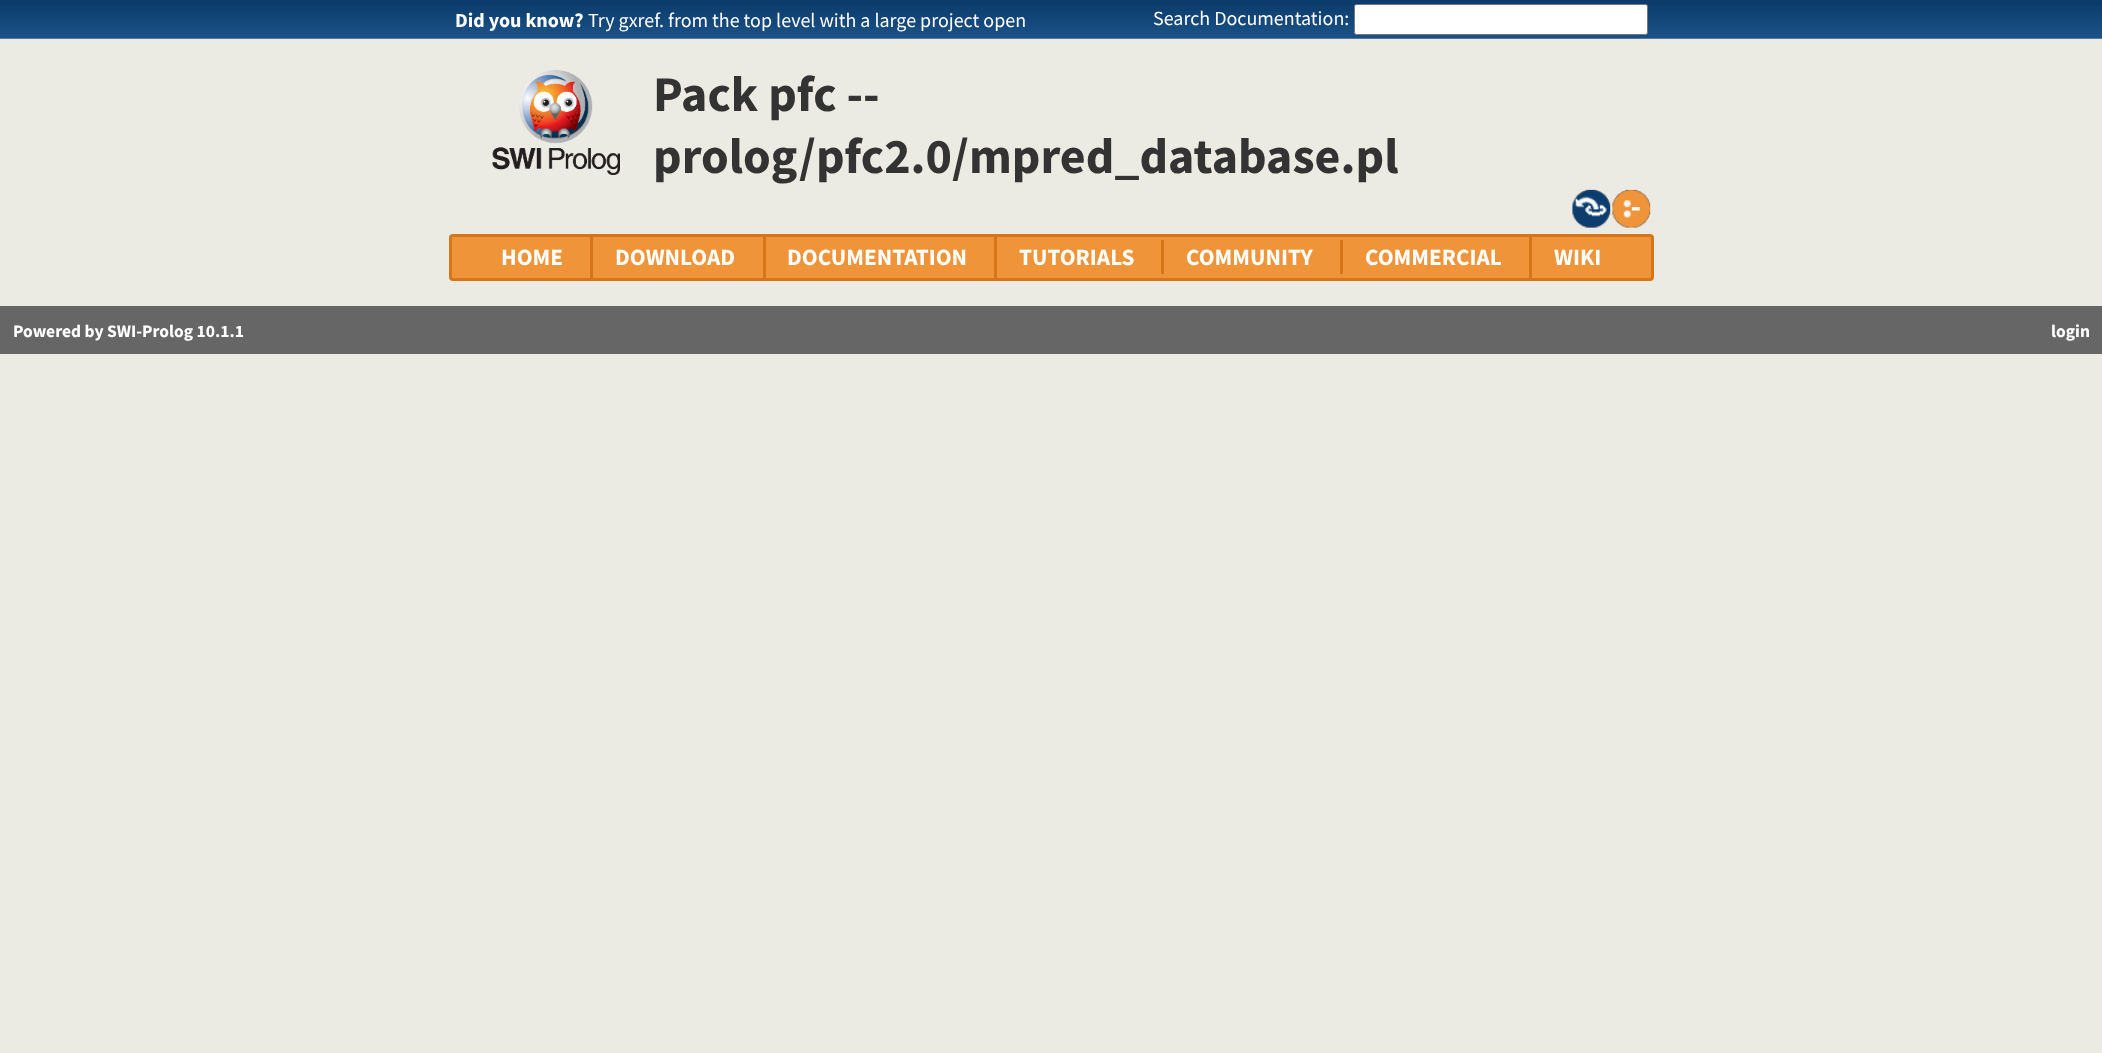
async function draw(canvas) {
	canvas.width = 2102;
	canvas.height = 1053;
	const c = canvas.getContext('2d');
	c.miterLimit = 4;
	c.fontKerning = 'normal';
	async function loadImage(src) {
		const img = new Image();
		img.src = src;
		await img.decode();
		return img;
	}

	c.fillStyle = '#ecebe3';
	c.fillRect(0, 0, 2102, 1053);
	c.drawImage(await loadImage('img1.png'), 0, 0, 2102, 39);
	c.font = 'bold 20px Source Sans Pro';
	c.fillStyle = '#fff';
	c.fillText('Did you know?', 455, 27);
	c.font = '20px Source Sans Pro';
	c.fillText('Try gxref. from the top level with a large project open', 588, 27);
	c.fillText('Search Documentation:', 1153, 25);
	c.beginPath();
	c.roundRect(1354.5, 4.5, 293, 30, 2);
	c.fill();
	c.strokeStyle = '#767676';
	c.stroke();
	c.drawImage(await loadImage('img2.png'), 492, 70, 128, 105);
	c.font = 'bold 50px Source Sans Pro';
	c.fillStyle = '#333';
	c.fillText('Pack pfc --', 653, 111);
	c.fillText('prolog/pfc2.0/mpred_database.pl', 653, 173);
	c.drawImage(await loadImage('img3.png'), 1572, 189, 39, 39);
	c.drawImage(await loadImage('img4.png'), 1612, 189, 39, 39);
	c.fillStyle = '#ef9439';
	c.beginPath();
	c.roundRect(450.5, 235.5, 1202, 44, 2.5);
	c.fill();
	c.strokeStyle = '#d57719';
	c.lineWidth = 3;
	c.stroke();
	c.font = 'bold 23.25px Source Sans Pro';
	c.fillStyle = '#fff';
	c.fillText('HOME', 501, 265);
	c.fillStyle = '#d57719';
	c.fillRect(590, 236, 3, 43);
	c.fillStyle = '#fff';
	c.fillText('DOWNLOAD', 615, 265);
	c.fillStyle = '#d57719';
	c.fillRect(763, 236, 3, 43);
	c.fillStyle = '#fff';
	c.fillText('DOCUMENTATION', 787, 265);
	c.fillStyle = '#d57719';
	c.fillRect(994, 236, 3, 43);
	c.fillStyle = '#fff';
	c.fillText('TUTORIALS', 1019, 265);
	c.fillStyle = '#d57719';
	c.fillRect(1161, 240, 3, 34);
	c.fillStyle = '#fff';
	c.fillText('COMMUNITY', 1186, 265);
	c.fillStyle = '#d57719';
	c.fillRect(1340, 240, 3, 34);
	c.fillStyle = '#fff';
	c.fillText('COMMERCIAL', 1365, 265);
	c.fillStyle = '#d57719';
	c.fillRect(1529, 236, 3, 43);
	c.fillStyle = '#fff';
	c.fillText('WIKI', 1554, 265);
	c.fillStyle = '#666';
	c.fillRect(0, 306, 2102, 48);
	c.font = 'bold 17.5px Source Sans Pro';
	c.fillStyle = '#fff';
	c.fillText('Powered by SWI-Prolog 10.1.1', 13, 337);
	c.fillText('login', 2051, 337);
}

draw(document.querySelector('canvas'));
